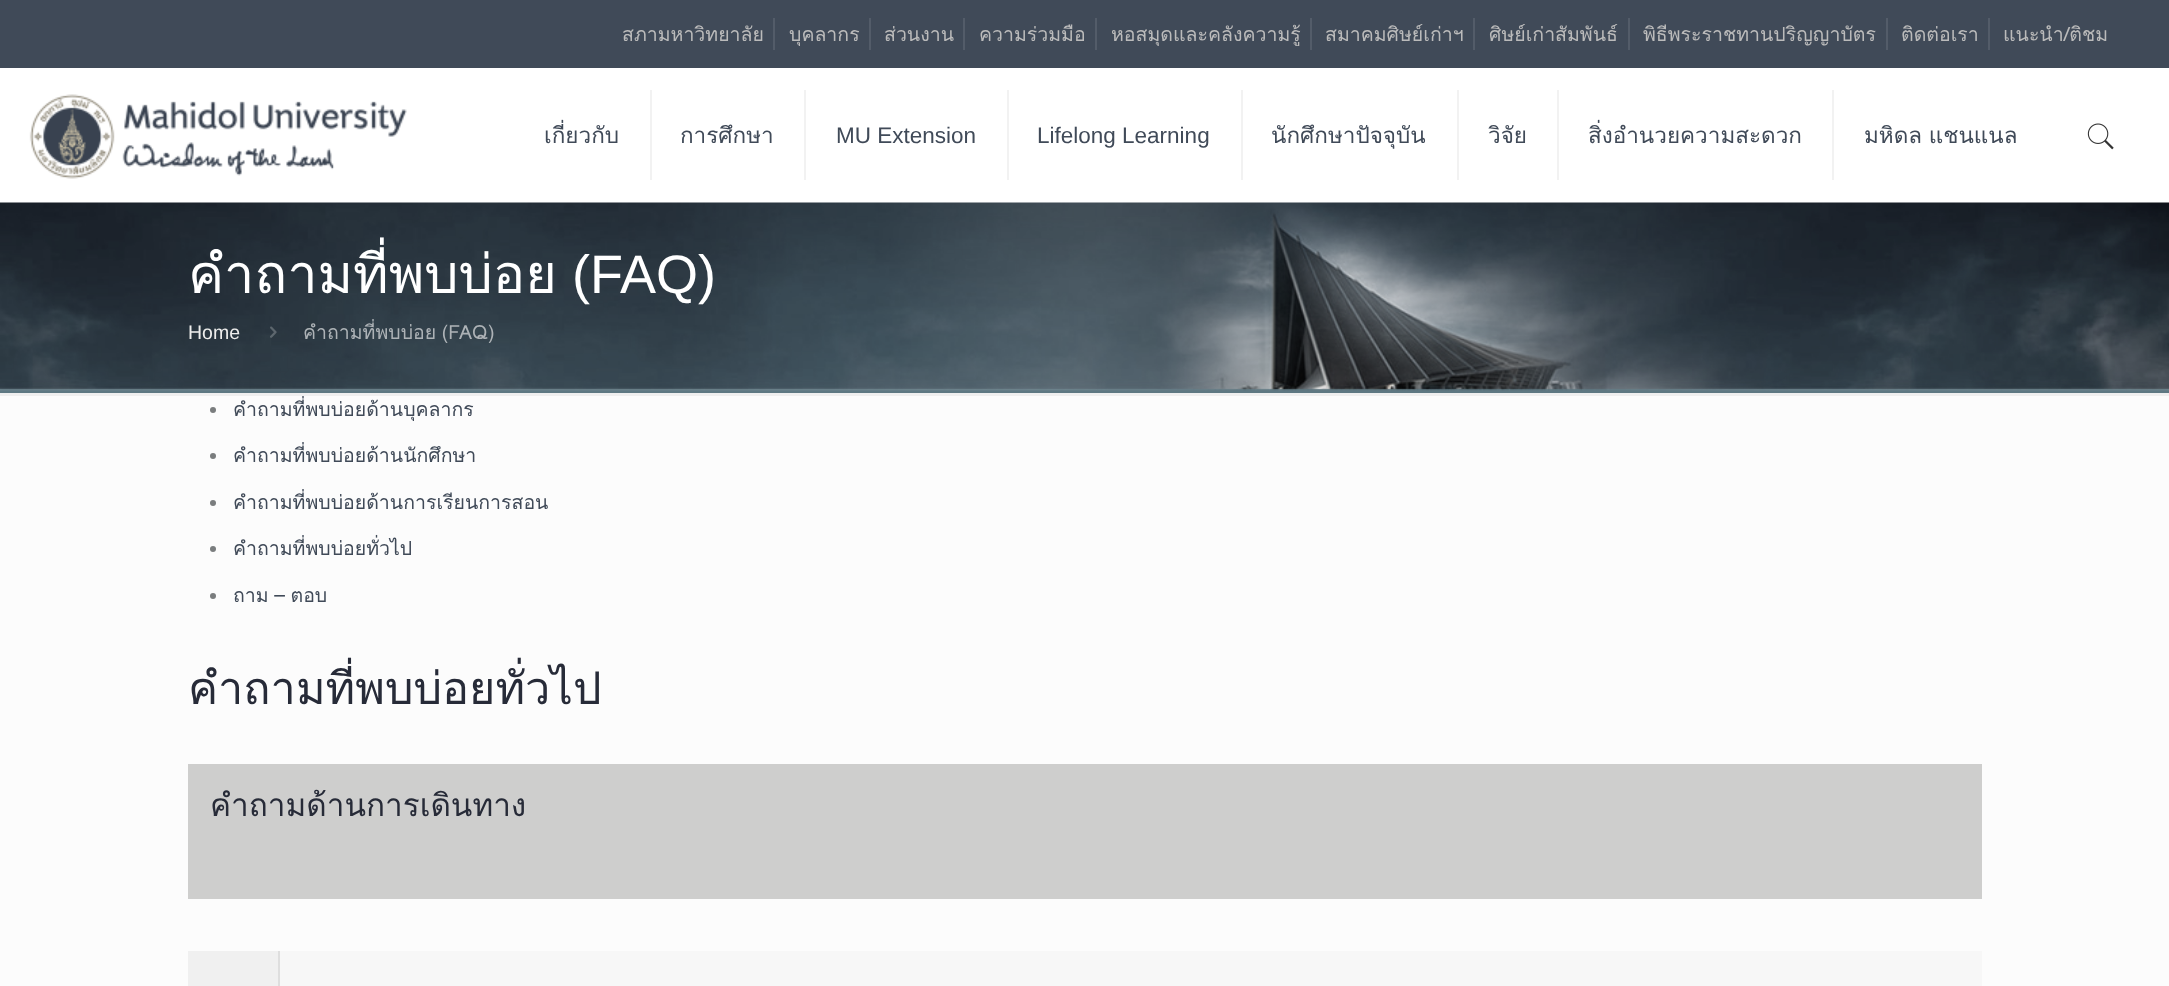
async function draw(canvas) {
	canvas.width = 2169;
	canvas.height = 986;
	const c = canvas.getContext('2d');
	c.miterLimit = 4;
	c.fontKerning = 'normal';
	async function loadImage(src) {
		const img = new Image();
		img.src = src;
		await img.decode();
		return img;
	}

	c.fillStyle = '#fcfcfc';
	c.fillRect(0, 0, 2169, 986);
	for (const [x, y, w, h, color] of [
		[0, 68, 2169, 135, '#fff'],
		[0, 0, 2169, 68, '#404a58'],
		[773, 18, 2, 32, '#535c69'],
	]) {
		c.fillStyle = color;
		c.fillRect(x, y, w, h);
	}
	c.font = '19.5px Loma';
	c.fillStyle = '#bbb';
	c.fillText('สภามหาวิทยาลัย', 622, 41);
	c.fillStyle = '#535c69';
	c.fillRect(869, 18, 2, 32);
	c.fillStyle = '#bbb';
	c.fillText('บุคลากร', 789, 41);
	c.fillStyle = '#535c69';
	c.fillRect(963, 18, 2, 32);
	c.fillStyle = '#bbb';
	c.fillText('ส่วนงาน', 884, 41);
	c.fillStyle = '#535c69';
	c.fillRect(1095, 18, 2, 32);
	c.fillStyle = '#bbb';
	c.fillText('ความร่วมมือ', 979, 41);
	c.fillStyle = '#535c69';
	c.fillRect(1310, 18, 2, 32);
	c.fillStyle = '#bbb';
	c.fillText('หอสมุดและคลังความรู้', 1111, 41);
	c.fillStyle = '#535c69';
	c.fillRect(1473, 18, 2, 32);
	c.fillStyle = '#bbb';
	c.fillText('สมาคมศิษย์เก่าฯ', 1325, 41);
	c.fillStyle = '#535c69';
	c.fillRect(1628, 18, 2, 32);
	c.fillStyle = '#bbb';
	c.fillText('ศิษย์เก่าสัมพันธ์', 1489, 41);
	c.fillStyle = '#535c69';
	c.fillRect(1886, 18, 2, 32);
	c.fillStyle = '#bbb';
	c.fillText('พิธีพระราชทานปริญญาบัตร', 1643, 41);
	c.fillStyle = '#535c69';
	c.fillRect(1988, 18, 2, 32);
	c.fillStyle = '#bbb';
	c.fillText('ติดต่อเรา', 1901, 41);
	c.fillText('แนะนำ/ติชม', 2003, 41);
	c.drawImage(await loadImage('img1.png'), 29, 94, 378, 85);
	c.fillStyle = '#f2f2f2';
	c.fillRect(650, 90, 2, 90);
	c.font = '22.5px Loma';
	c.fillStyle = '#404a58';
	c.fillText('เกี่ยวกับ', 544, 143);
	c.fillStyle = '#f2f2f2';
	c.fillRect(804, 90, 2, 90);
	c.fillStyle = '#404a58';
	c.fillText('การศึกษา', 680, 143);
	c.fillStyle = '#f2f2f2';
	c.fillRect(1007, 90, 2, 90);
	c.font = '22.5px Liberation Sans';
	c.fillStyle = '#404a58';
	c.fillText('MU Extension', 836, 143);
	c.fillStyle = '#f2f2f2';
	c.fillRect(1241, 90, 2, 90);
	c.fillStyle = '#404a58';
	c.fillText('Lifelong Learning', 1037, 143);
	c.fillStyle = '#f2f2f2';
	c.fillRect(1457, 90, 2, 90);
	c.font = '22.5px Loma';
	c.fillStyle = '#404a58';
	c.fillText('นักศึกษาปัจจุบัน', 1271, 143);
	c.fillStyle = '#f2f2f2';
	c.fillRect(1557, 90, 2, 90);
	c.fillStyle = '#404a58';
	c.fillText('วิจัย', 1488, 143);
	c.fillStyle = '#f2f2f2';
	c.fillRect(1832, 90, 2, 90);
	c.fillStyle = '#404a58';
	c.fillText('สิ่งอำนวยความสะดวก', 1588, 143);
	c.wordSpacing = '-1px';
	c.fillText('มหิดล แชนแนล', 1864, 143);
	c.drawImage(await loadImage('img2.png'), 2087, 123, 27, 27);
	c.drawImage(await loadImage('img3.png'), 0, 202, 2169, 191);
	c.wordSpacing = '0px';
	c.font = '54px Loma';
	c.fillStyle = '#fff';
	c.fillText('คำถามที่พบบ่อย', 188, 293);
	c.font = '54px Liberation Sans';
	c.fillText('(FAQ)', 572, 293);
	c.font = '19.5px Liberation Sans';
	c.fillStyle = '#ededec';
	c.fillText('Home', 188, 339);
	c.drawImage(await loadImage('img4.png'), 270, 326, 7, 12);
	c.wordSpacing = '-1px';
	c.font = '19.5px Loma';
	c.fillStyle = '#adb2b6';
	c.fillText('คำถามที่พบบ่อย (FAQ)', 303, 339);
	c.fillStyle = '#0000000d';
	c.fillRect(0, 393, 2169, 3);
	c.fillStyle = '#7a7d7e';
	c.beginPath();
	c.arc(213, 410, 3, 0, 2 * Math.PI);
	c.fill();
	c.wordSpacing = '0px';
	c.fillStyle = '#404a58';
	c.fillText('คำถามที่พบบ่อยด้านบุคลากร', 233, 416);
	c.fillStyle = '#7a7d7e';
	c.beginPath();
	c.arc(213, 456, 3, 0, 2 * Math.PI);
	c.fill();
	c.fillStyle = '#404a58';
	c.fillText('คำถามที่พบบ่อยด้านนักศึกษา', 233, 462);
	c.fillStyle = '#7a7d7e';
	c.beginPath();
	c.arc(213, 503, 3, 0, 2 * Math.PI);
	c.fill();
	c.fillStyle = '#404a58';
	c.fillText('คำถามที่พบบ่อยด้านการเรียนการสอน', 233, 509);
	c.fillStyle = '#7a7d7e';
	c.beginPath();
	c.arc(213, 549, 3, 0, 2 * Math.PI);
	c.fill();
	c.fillStyle = '#404a58';
	c.fillText('คำถามที่พบบ่อยทั่วไป', 233, 555);
	c.fillStyle = '#7a7d7e';
	c.beginPath();
	c.arc(213, 596, 3, 0, 2 * Math.PI);
	c.fill();
	c.wordSpacing = '-1px';
	c.fillStyle = '#404a58';
	c.fillText('ถาม – ตอบ', 233, 602);
	c.wordSpacing = '0px';
	c.font = '45px Loma';
	c.fillStyle = '#272b38';
	c.fillText('คำถามที่พบบ่อยทั่วไป', 188, 704);
	c.fillStyle = '#cececd';
	c.fillRect(188, 764, 1794, 135);
	c.font = '31.5px Loma';
	c.fillStyle = '#272b38';
	c.fillText('คำถามด้านการเดินทาง', 210, 816);
	for (const [x, y, w, h, color] of [
		[280, 951, 1702, 35, '#f7f7f7'],
		[188, 951, 90, 35, '#f0f0f0'],
		[278, 951, 2, 35, '#dedede'],
	]) {
		c.fillStyle = color;
		c.fillRect(x, y, w, h);
	}
}

draw(document.querySelector('canvas'));
